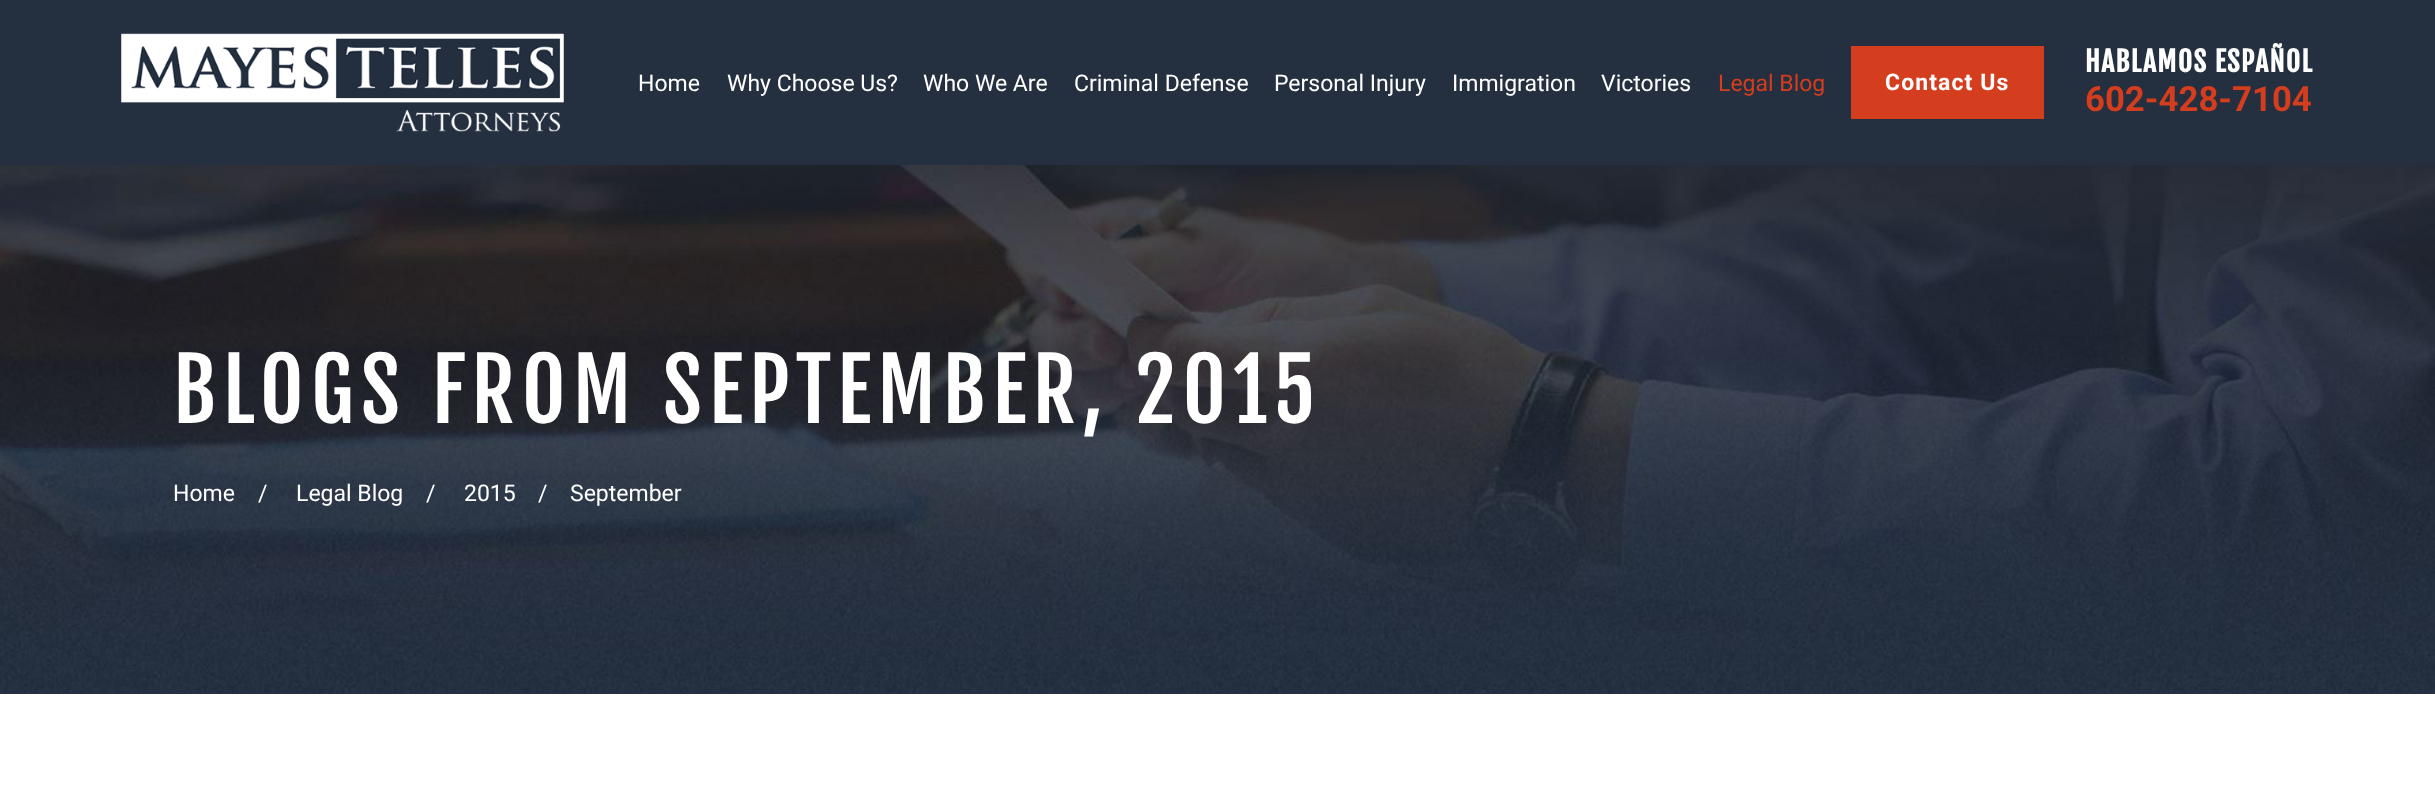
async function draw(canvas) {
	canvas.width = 2435;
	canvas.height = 805;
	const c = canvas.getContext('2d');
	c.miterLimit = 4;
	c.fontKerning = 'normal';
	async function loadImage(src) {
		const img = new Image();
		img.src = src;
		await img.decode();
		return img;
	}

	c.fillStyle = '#fff';
	c.fillRect(0, 0, 2435, 805);
	c.fillStyle = '#242f3f';
	c.fillRect(0, 0, 2435, 165);
	c.drawImage(await loadImage('img1.png'), 121, 33, 443, 99);
	c.font = '23px Roboto';
	c.fillStyle = '#fff';
	for (const [text, x, y] of [
		['Home', 638, 91],
		['Why Choose Us?', 727, 91],
		['Who We Are', 923, 91],
		['Criminal Defense', 1074, 91],
		['Personal Injury', 1274, 91],
		['Immigration', 1452, 91],
		['Victories', 1601, 91],
	]) {
		c.fillText(text, x, y);
	}
	c.fillStyle = '#d43d1d';
	c.fillText('Legal Blog', 1718, 91);
	c.fillRect(1851, 46, 193, 73);
	c.letterSpacing = '1.1px';
	c.font = 'bold 23px Roboto';
	c.fillStyle = '#fff';
	c.fillText('Contact Us', 1885, 90);
	c.letterSpacing = '1.4px';
	c.font = 'bold 27.5px Fjalla One';
	c.fillText('HABLAMOS ESPAÑOL', 2085, 72);
	c.letterSpacing = '0px';
	c.font = 'bold 34.75px Roboto';
	c.fillStyle = '#d43d1d';
	c.fillText('602-428-7104', 2085, 111);
	c.fillStyle = '#242f3f';
	c.fillRect(0, 693, 2435, 1);
	c.drawImage(await loadImage('img2.png'), 0, 165, 2435, 528);
	c.letterSpacing = '6.8px';
	c.font = '84.75px Fjalla One';
	c.fillStyle = '#fff';
	c.fillText('BLOGS FROM SEPTEMBER, 2015', 173, 423);
	c.letterSpacing = '0px';
	c.font = '23px Roboto';
	for (const [text, x, y] of [
		['Home', 173, 501],
		['/', 258, 501],
		['Legal Blog', 296, 501],
		['/', 426, 501],
		['2015', 464, 501],
		['/', 538, 501],
		['September', 570, 501],
	]) {
		c.fillText(text, x, y);
	}
}

draw(document.querySelector('canvas'));
